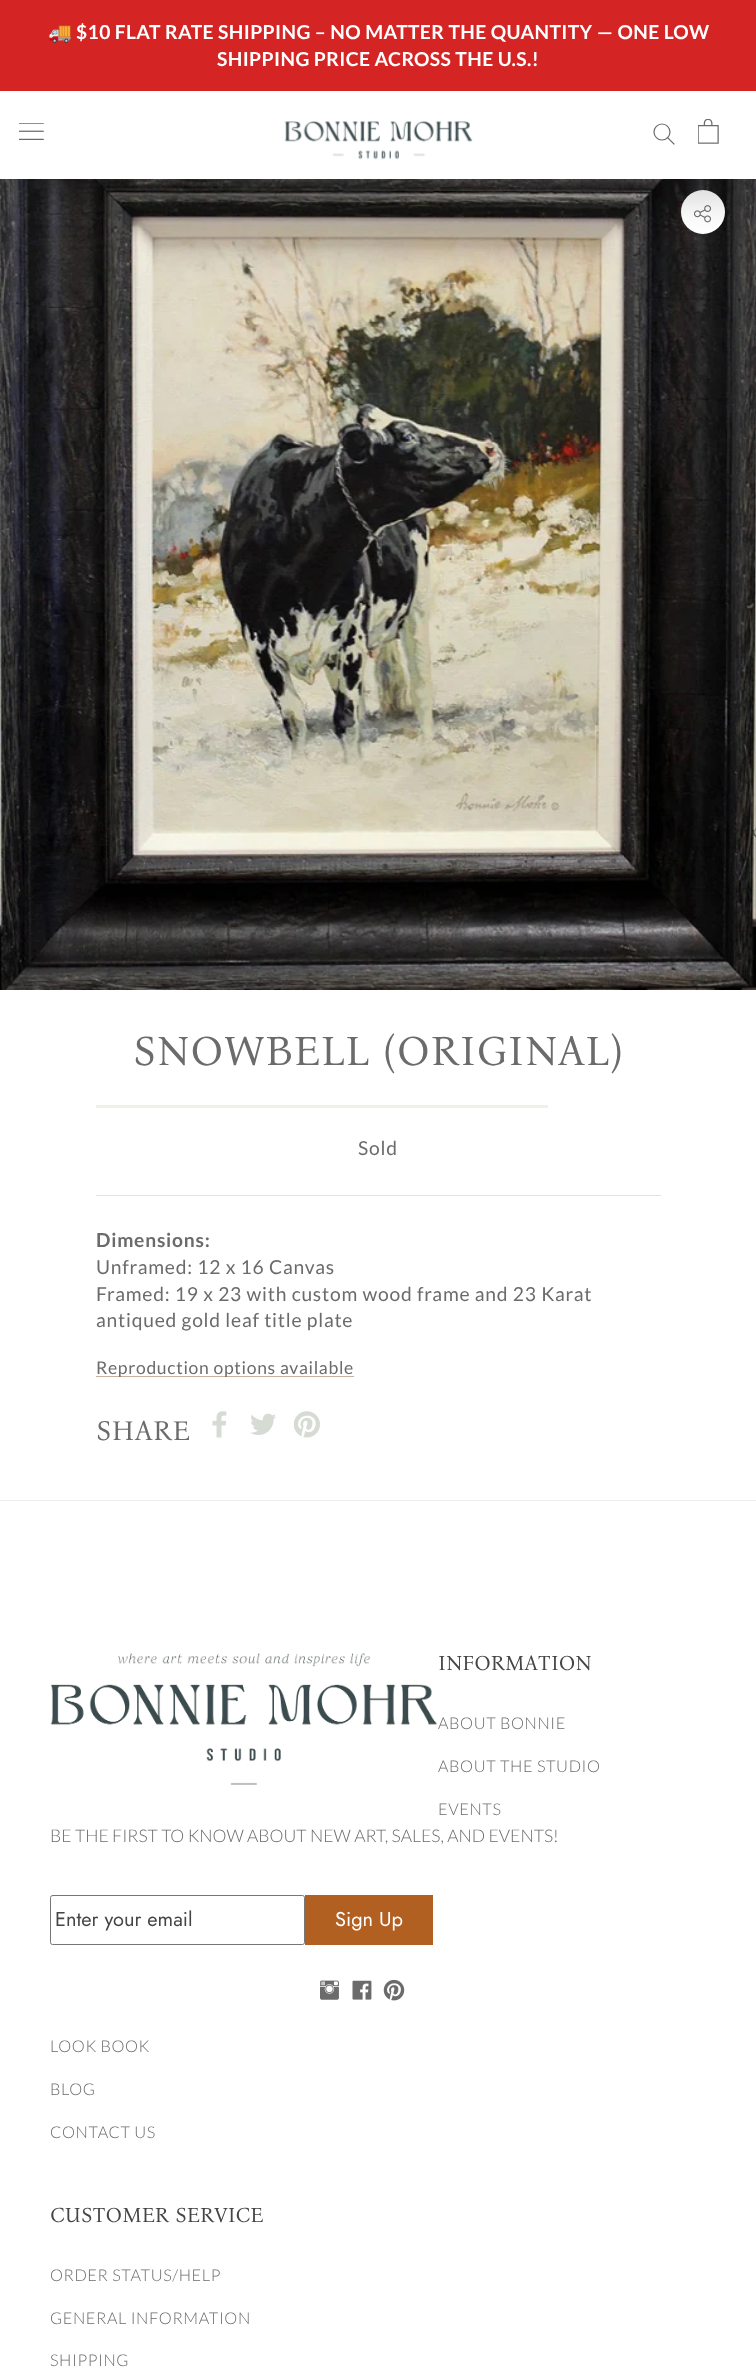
async function draw(canvas) {
	canvas.width = 756;
	canvas.height = 2371;
	const c = canvas.getContext('2d');
	c.miterLimit = 4;
	c.fontKerning = 'normal';
	async function loadImage(src) {
		const img = new Image();
		img.src = src;
		await img.decode();
		return img;
	}

	c.fillStyle = '#fff';
	c.fillRect(0, 0, 756, 2371);
	c.drawImage(await loadImage('img4.png'), 0, 179, 756, 811);
	c.beginPath();
	c.arc(703, 212, 22, 0, 2 * Math.PI);
	c.fill();
	c.drawImage(await loadImage('img5.png'), 694, 205, 17, 18);
	c.fillStyle = '#0000002e';
	c.filter = 'blur(19px)';
	c.beginPath();
	c.rect(0, 110, 756, 88);
	c.fill();
	c.filter = 'none';
	c.fillStyle = '#d52424';
	c.fillRect(0, 0, 756, 91);
	c.letterSpacing = '0.4px';
	c.font = 'bold 19.25px Noto Color Emoji';
	c.fillStyle = '#fff';
	c.fillText('🚚', 48, 39);
	c.font = 'bold 19.25px Lato';
	c.fillText('$10 FLAT RATE SHIPPING – NO MATTER THE QUANTITY — ONE LOW', 76, 39);
	c.fillText('SHIPPING PRICE ACROSS THE U.S.!', 217, 66);
	c.fillRect(0, 91, 756, 88);
	c.drawImage(await loadImage('img1.png'), 19, 123, 25, 17);
	c.drawImage(await loadImage('img2.png'), 284, 121, 189, 39);
	c.beginPath();
	c.moveTo(674, 144);
	c.lineTo(667.5, 137.5);
	c.strokeStyle = '#6b6b6b';
	c.lineWidth = 1.2;
	c.lineCap = 'square';
	c.stroke();
	c.beginPath();
	c.arc(662, 132, 8, 0, 2 * Math.PI);
	c.stroke();
	c.drawImage(await loadImage('img3.png'), 698, 119, 21, 25);
	c.letterSpacing = '0.8px';
	c.font = '42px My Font';
	c.fillStyle = '#6b6b6b';
	c.fillText('SNOWBELL (ORIGINAL)', 133, 1065);
	c.fillStyle = '#f2efea';
	c.fillRect(96, 1105, 452, 3);
	c.letterSpacing = '0.77px';
	c.font = '19.25px Lato';
	c.fillStyle = '#6b6b6b';
	c.fillText('Sold', 358, 1155);
	c.fillStyle = '#e3e3e3';
	c.fillRect(96, 1195, 565, 1);
	c.font = 'bold 19.25px Lato';
	c.fillStyle = '#6b6b6b';
	c.fillText('Dimensions:', 96, 1247);
	c.font = '19.25px Lato';
	for (const [text, x, y] of [
		['Unframed: 12 x 16 Canvas', 96, 1274],
		['Framed: 19 x 23 with custom wood frame and 23 Karat', 96, 1301],
		['antiqued gold leaf title plate', 96, 1327],
	]) {
		c.fillText(text, x, y);
	}
	c.fillStyle = '#c7b09e';
	c.fillRect(96, 1376, 258, 1);
	c.letterSpacing = '0.7px';
	c.font = '17.5px Lato';
	c.fillStyle = '#6b6b6b';
	c.fillText('Reproduction options available', 96, 1374);
	c.letterSpacing = '0.5px';
	c.font = '28px My Font';
	c.fillText('SHARE', 96, 1440);
	c.drawImage(await loadImage('img6.png'), 212, 1411, 15, 27);
	c.drawImage(await loadImage('img7.png'), 250, 1413, 26, 22);
	c.drawImage(await loadImage('img8.png'), 294, 1411, 26, 27);
	c.fillStyle = '#eee';
	c.fillRect(0, 1500, 756, 1);
	c.letterSpacing = '0px';
	c.font = '21px My Font';
	c.fillStyle = '#454545';
	c.fillText('INFORMATION', 438, 1670);
	c.letterSpacing = '0.6px';
	c.font = '300 16.25px Lato';
	c.fillStyle = '#6b6b6b';
	for (const [text, x, y] of [
		['ABOUT BONNIE', 438, 1729],
		['ABOUT THE STUDIO', 438, 1772],
		['EVENTS', 438, 1815],
		['LOOK BOOK', 50, 2052],
		['BLOG', 50, 2095],
		['CONTACT US', 50, 2138],
	]) {
		c.fillText(text, x, y);
	}
	c.letterSpacing = '0px';
	c.font = '21px My Font';
	c.fillStyle = '#454545';
	c.fillText('CUSTOMER SERVICE', 50, 2222);
	c.letterSpacing = '0.6px';
	c.font = '300 16.25px Lato';
	c.fillStyle = '#6b6b6b';
	for (const [text, x, y] of [
		['ORDER STATUS/HELP', 50, 2281],
		['GENERAL INFORMATION', 50, 2324],
		['SHIPPING', 50, 2366],
	]) {
		c.fillText(text, x, y);
	}
	c.drawImage(await loadImage('img9.png'), 50, 1653, 387, 132);
	c.letterSpacing = '0px';
	c.font = '300 17.5px Lato';
	c.fillText('BE THE FIRST TO KNOW ABOUT NEW ART, SALES, AND EVENTS!', 50, 1842);
	c.beginPath();
	c.roundRect(50.5, 1895.5, 254, 49, 2);
	c.strokeStyle = '#767676';
	c.lineWidth = 1;
	c.stroke();
	c.font = '20px Jost';
	c.fillStyle = '#454545';
	c.fillText('Enter your email', 55, 1926);
	c.fillStyle = '#b25f22';
	c.fillRect(305, 1895, 128, 50);
	c.fillStyle = '#fff';
	c.fillText('Sign Up', 335, 1926);
	c.drawImage(await loadImage('img10.png'), 320, 1980, 19, 20);
	c.drawImage(await loadImage('img11.png'), 352, 1980, 20, 20);
	c.drawImage(await loadImage('img12.png'), 383, 1979, 22, 22);
}

draw(document.querySelector('canvas'));
